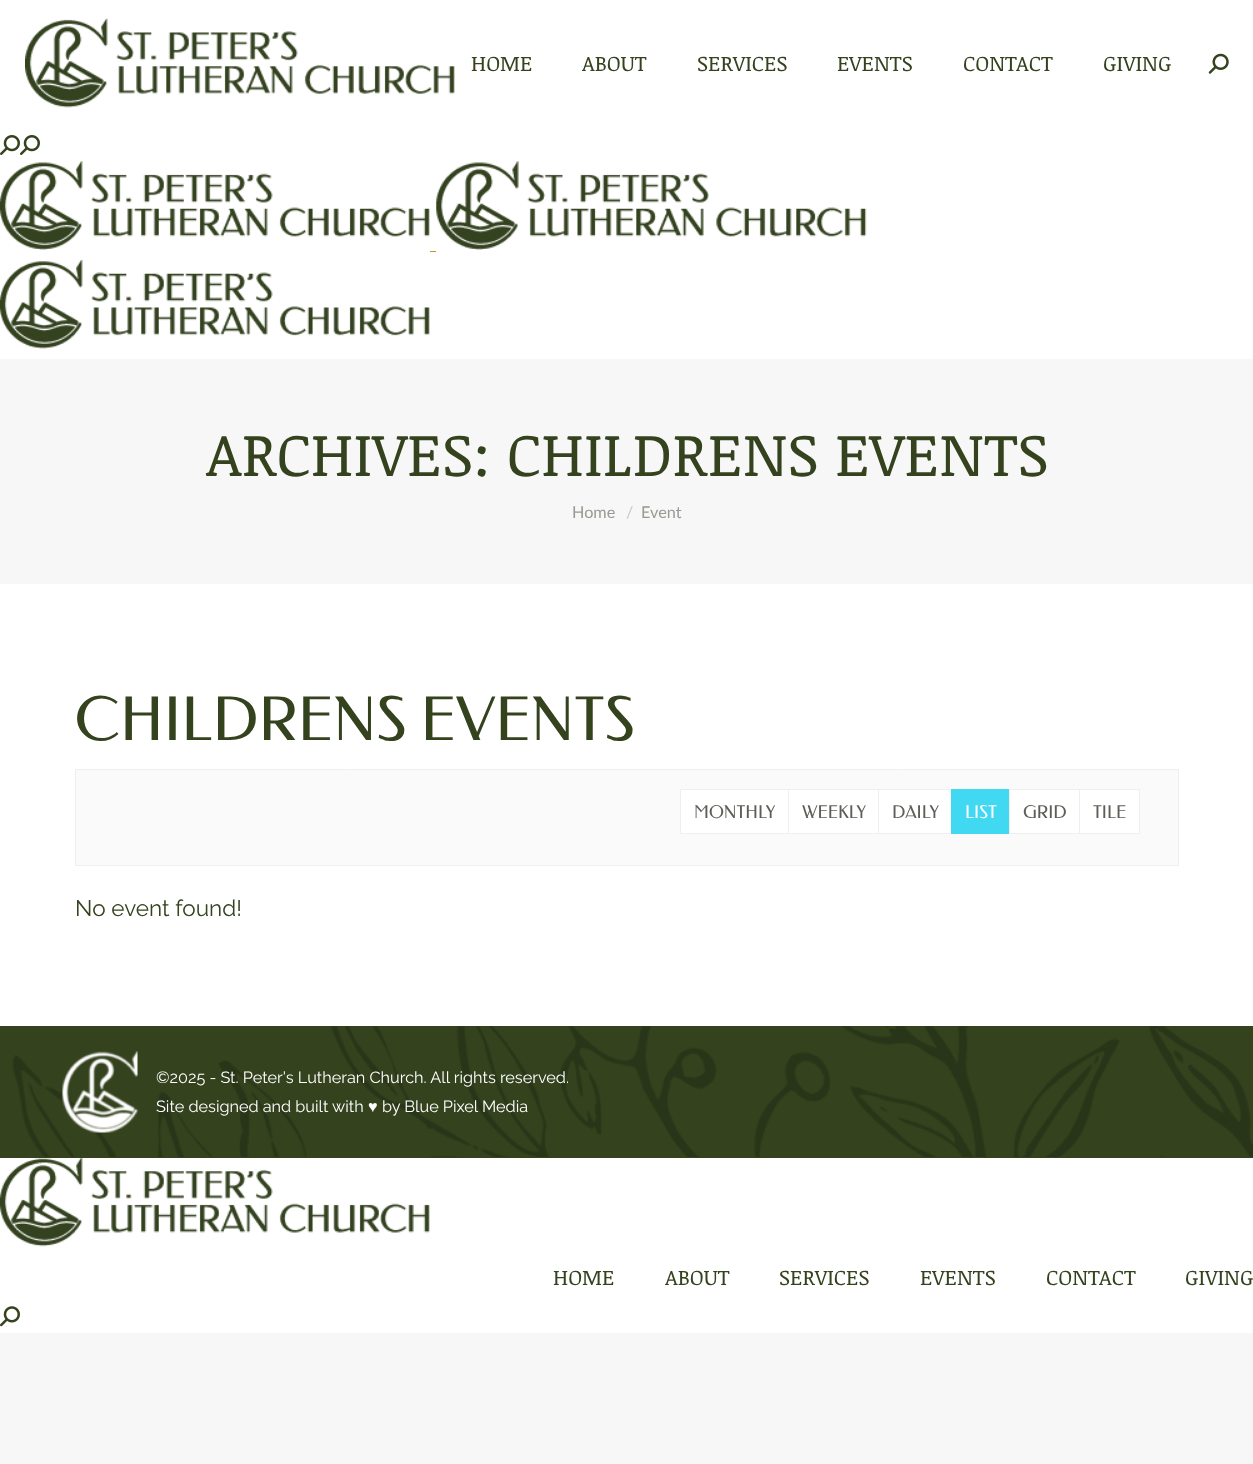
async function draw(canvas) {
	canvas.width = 1253;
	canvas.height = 1464;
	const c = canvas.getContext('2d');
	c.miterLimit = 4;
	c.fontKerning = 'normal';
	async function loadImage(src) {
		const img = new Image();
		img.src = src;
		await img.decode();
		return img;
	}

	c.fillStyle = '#f7f7f7';
	c.fillRect(0, 0, 1253, 1464);
	c.fillStyle = '#fff';
	c.fillRect(0, 0, 1253, 1026);
	c.drawImage(await loadImage('img1.png'), 25, 18, 430, 90);
	c.font = '21.25px Noticia Text';
	c.fillStyle = '#34421e';
	for (const [text, x, y] of [
		['HOME', 471, 71],
		['ABOUT', 582, 71],
		['SERVICES', 697, 71],
		['EVENTS', 837, 71],
		['CONTACT', 963, 71],
		['GIVING', 1103, 71],
	]) {
		c.fillText(text, x, y);
	}
	c.drawImage(await loadImage('img2.png'), 1208, 53, 21, 21);
	c.drawImage(await loadImage('img3.png'), 0, 135, 20, 20);
	c.drawImage(await loadImage('img3.png'), 20, 135, 20, 20);
	c.drawImage(await loadImage('img4.png'), 0, 161, 430, 89);
	c.drawImage(await loadImage('img5.png'), 436, 161, 431, 89);
	c.fillStyle = '#c19434';
	c.fillRect(430, 251, 6, 1);
	c.drawImage(await loadImage('img6.png'), 0, 260, 430, 89);
	c.fillStyle = '#f7f7f7';
	c.fillRect(0, 359, 1253, 225);
	c.font = '60px Noticia Text';
	c.fillStyle = '#34421e';
	c.fillText('ARCHIVES: CHILDRENS EVENTS', 206, 476);
	c.font = '16.25px Lato';
	c.fillStyle = '#9a9891';
	c.fillText('Home', 572, 518);
	c.fillStyle = '#c9c8c4';
	c.fillText('/', 626, 518);
	c.fillStyle = '#9a9891';
	c.fillText('Event', 641, 518);
	c.font = '60px Federo';
	c.fillStyle = '#34421e';
	c.fillText('CHILDRENS EVENTS', 75, 740);
	c.fillStyle = '#fafafa';
	c.beginPath();
	c.rect(75.5, 769.5, 1103, 96);
	c.fill();
	c.strokeStyle = '#efefef';
	c.stroke();
	c.fillStyle = '#fff';
	c.beginPath();
	c.rect(680.5, 789.5, 108, 44);
	c.fill();
	c.stroke();
	c.font = '17.5px Federo';
	c.fillStyle = '#5f5d57';
	c.fillText('MONTHLY', 694, 818);
	c.fillStyle = '#fff';
	c.beginPath();
	c.rect(788.5, 789.5, 90, 44);
	c.fill();
	c.stroke();
	c.fillStyle = '#5f5d57';
	c.fillText('WEEKLY', 802, 818);
	c.fillStyle = '#fff';
	c.fillRect(879, 790, 72, 43);
	c.strokeRect(878.5, 789.5, 74, 44);
	c.fillStyle = '#5f5d57';
	c.fillText('DAILY', 892, 818);
	c.fillStyle = '#40d9f1';
	c.fillRect(951, 789, 58, 45);
	c.fillStyle = '#fff';
	c.fillText('LIST', 965, 818);
	c.beginPath();
	c.rect(1009.5, 789.5, 70, 44);
	c.fill();
	c.stroke();
	c.fillStyle = '#5f5d57';
	c.fillText('GRID', 1023, 818);
	c.fillStyle = '#fff';
	c.beginPath();
	c.rect(1079.5, 789.5, 60, 44);
	c.fill();
	c.stroke();
	c.fillStyle = '#5f5d57';
	c.fillText('TILE', 1093, 818);
	c.font = '22.5px Raleway';
	c.fillStyle = '#34421e';
	c.fillText('No event found!', 75, 916);
	c.fillRect(0, 1026, 1253, 132);
	c.drawImage(await loadImage('img7.png'), 12, 1026, 1241, 131);
	c.drawImage(await loadImage('img8.png'), 62, 1051, 76, 82);
	c.font = '16.25px Raleway';
	c.fillStyle = '#fff';
	c.fillText('©2025 - St. Peter\'s Lutheran Church. All rights reserved.', 156, 1083);
	c.fillText('Site designed and built with', 156, 1112);
	c.font = '16.25px Liberation Sans';
	c.fillText('♥', 368, 1112);
	c.font = '16.25px Raleway';
	c.fillText('by Blue Pixel Media', 382, 1112);
	c.fillRect(0, 1158, 1253, 175);
	c.drawImage(await loadImage('img9.png'), 0, 1158, 430, 89);
	c.font = '21.25px Noticia Text';
	c.fillStyle = '#34421e';
	for (const [text, x, y] of [
		['HOME', 553, 1285],
		['ABOUT', 665, 1285],
		['SERVICES', 779, 1285],
		['EVENTS', 920, 1285],
		['CONTACT', 1046, 1285],
		['GIVING', 1185, 1285],
	]) {
		c.fillText(text, x, y);
	}
	c.drawImage(await loadImage('img10.png'), 0, 1306, 20, 21);
}

draw(document.querySelector('canvas'));
